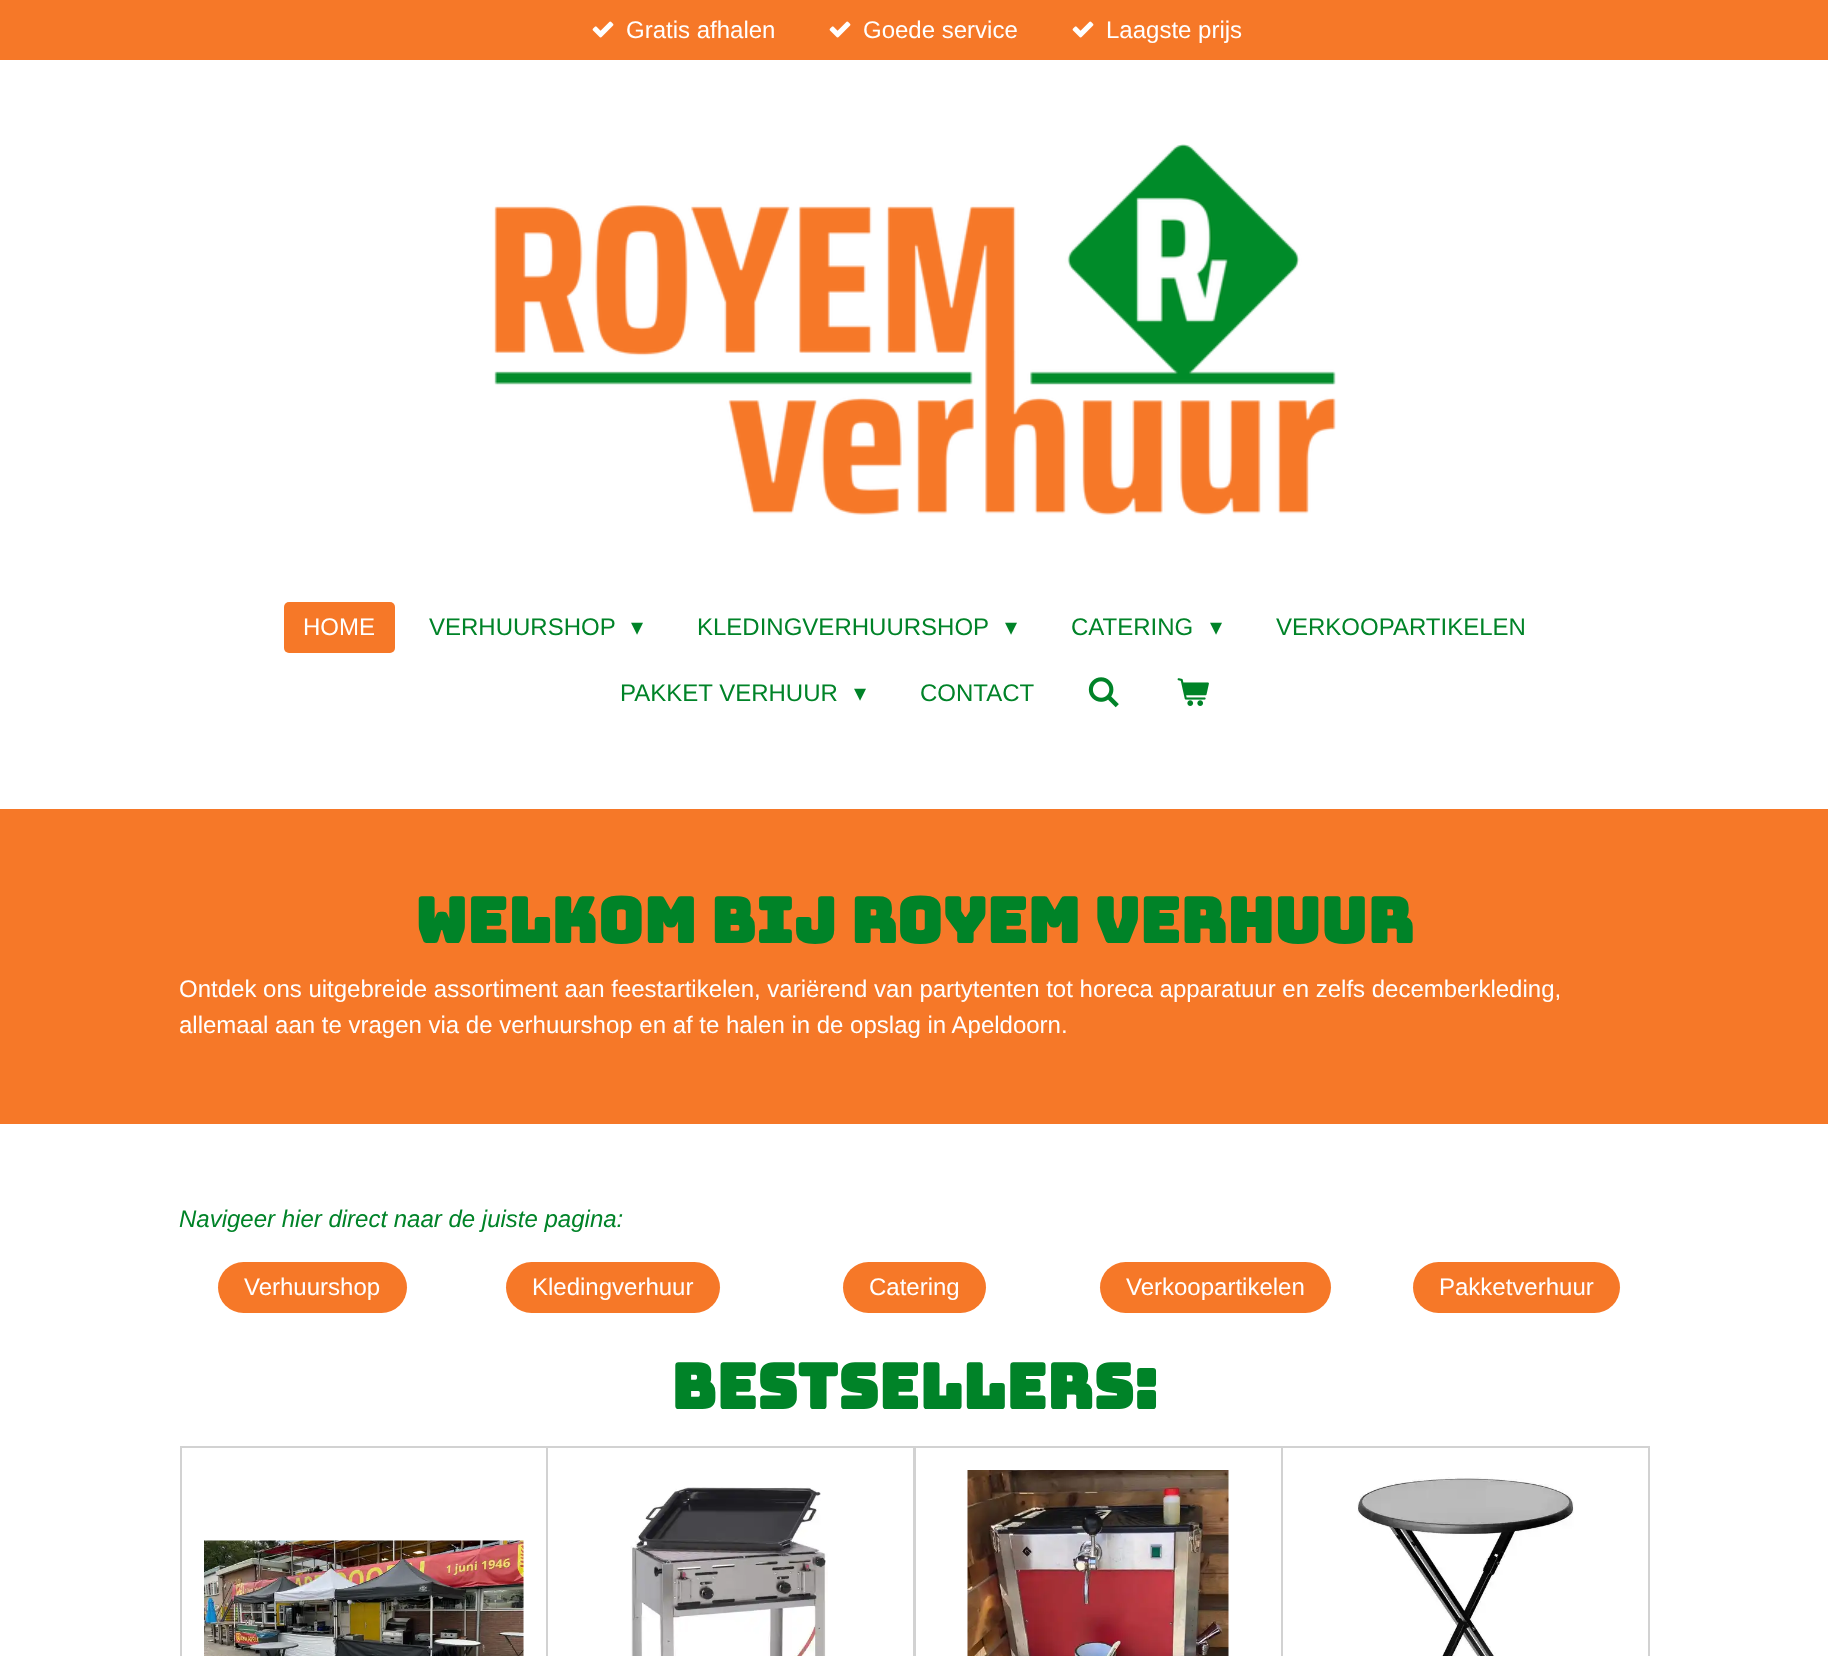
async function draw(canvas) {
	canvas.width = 1828;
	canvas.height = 1656;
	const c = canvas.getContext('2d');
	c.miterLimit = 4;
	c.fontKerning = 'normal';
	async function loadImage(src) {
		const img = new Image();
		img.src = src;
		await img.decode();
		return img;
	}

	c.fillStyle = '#fff';
	c.fillRect(0, 0, 1828, 1656);
	c.fillStyle = '#f67828';
	c.fillRect(0, 0, 1828, 60);
	c.drawImage(await loadImage('img1.png'), 592, 21, 22, 17);
	c.font = '24px Liberation Sans';
	c.fillStyle = '#fff';
	c.fillText('Gratis afhalen', 626, 38);
	c.drawImage(await loadImage('img1.png'), 829, 21, 22, 17);
	c.fillText('Goede service', 863, 38);
	c.drawImage(await loadImage('img1.png'), 1072, 21, 22, 17);
	c.fillText('Laagste prijs', 1106, 38);
	c.drawImage(await loadImage('img2.png'), 494, 144, 842, 371);
	c.fillStyle = '#f67828';
	c.beginPath();
	c.roundRect(284, 602, 111, 51, 5);
	c.fill();
	c.fillStyle = '#fff';
	c.fillText('HOME', 303, 635);
	c.fillStyle = '#008328';
	c.fillText('VERHUURSHOP', 429, 635);
	c.font = '24px DejaVu Sans';
	c.fillText('▾', 631, 635);
	c.font = '24px Liberation Sans';
	c.fillText('KLEDINGVERHUURSHOP', 697, 635);
	c.font = '24px DejaVu Sans';
	c.fillText('▾', 1005, 635);
	c.font = '24px Liberation Sans';
	c.fillText('CATERING', 1071, 635);
	c.font = '24px DejaVu Sans';
	c.fillText('▾', 1210, 635);
	c.font = '24px Liberation Sans';
	c.fillText('VERKOOPARTIKELEN', 1276, 635);
	c.fillText('PAKKET VERHUUR', 620, 701);
	c.font = '24px DejaVu Sans';
	c.fillText('▾', 854, 701);
	c.font = '24px Liberation Sans';
	c.fillText('CONTACT', 920, 701);
	c.drawImage(await loadImage('img3.png'), 1088, 677, 31, 31);
	c.drawImage(await loadImage('img4.png'), 1177, 678, 32, 28);
	c.fillStyle = '#f67828';
	c.fillRect(0, 809, 1828, 315);
	c.font = 'bold 62.4px Bungee';
	c.fillStyle = '#008328';
	c.fillText('Welkom bij Royem verhuur', 415, 943);
	c.font = '24px Liberation Sans';
	c.fillStyle = '#fff';
	c.fillText('Ontdek ons uitgebreide assortiment aan feestartikelen, variërend van partytenten tot horeca apparatuur en zelfs decemberkleding,', 179, 997);
	c.fillText('allemaal aan te vragen via de verhuurshop en af te halen in de opslag in Apeldoorn.', 179, 1033);
	c.font = 'italic 24px Liberation Sans';
	c.fillStyle = '#008328';
	c.fillText('Navigeer hier direct naar de juiste pagina:', 179, 1227);
	c.fillStyle = '#f67828';
	c.beginPath();
	c.roundRect(218, 1262, 189, 51, 25.5);
	c.fill();
	c.font = '24px Liberation Sans';
	c.fillStyle = '#fff';
	c.fillText('Verhuurshop', 244, 1295);
	c.fillStyle = '#f67828';
	c.beginPath();
	c.roundRect(506, 1262, 214, 51, 25.5);
	c.fill();
	c.fillStyle = '#fff';
	c.fillText('Kledingverhuur', 532, 1295);
	c.fillStyle = '#f67828';
	c.beginPath();
	c.roundRect(843, 1262, 143, 51, 25.5);
	c.fill();
	c.fillStyle = '#fff';
	c.fillText('Catering', 869, 1295);
	c.fillStyle = '#f67828';
	c.beginPath();
	c.roundRect(1100, 1262, 231, 51, 25.5);
	c.fill();
	c.fillStyle = '#fff';
	c.fillText('Verkoopartikelen', 1126, 1295);
	c.fillStyle = '#f67828';
	c.beginPath();
	c.roundRect(1413, 1262, 207, 51, 25.5);
	c.fill();
	c.fillStyle = '#fff';
	c.fillText('Pakketverhuur', 1439, 1295);
	c.font = 'bold 62.4px Bungee';
	c.fillStyle = '#008328';
	c.fillText('Bestsellers:', 671, 1409);
	c.strokeStyle = '#d2d2d2';
	c.lineWidth = 2;
	c.strokeRect(181, 1447, 366, 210);
	c.drawImage(await loadImage('img5.png'), 204, 1540, 320, 116);
	c.strokeRect(547, 1447, 367, 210);
	c.drawImage(await loadImage('img6.png'), 630, 1487, 198, 169);
	c.strokeRect(915, 1447, 367, 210);
	c.drawImage(await loadImage('img7.png'), 967, 1470, 262, 186);
	c.strokeRect(1282, 1447, 367, 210);
	c.drawImage(await loadImage('img8.png'), 1357, 1477, 217, 179);
}

draw(document.querySelector('canvas'));
